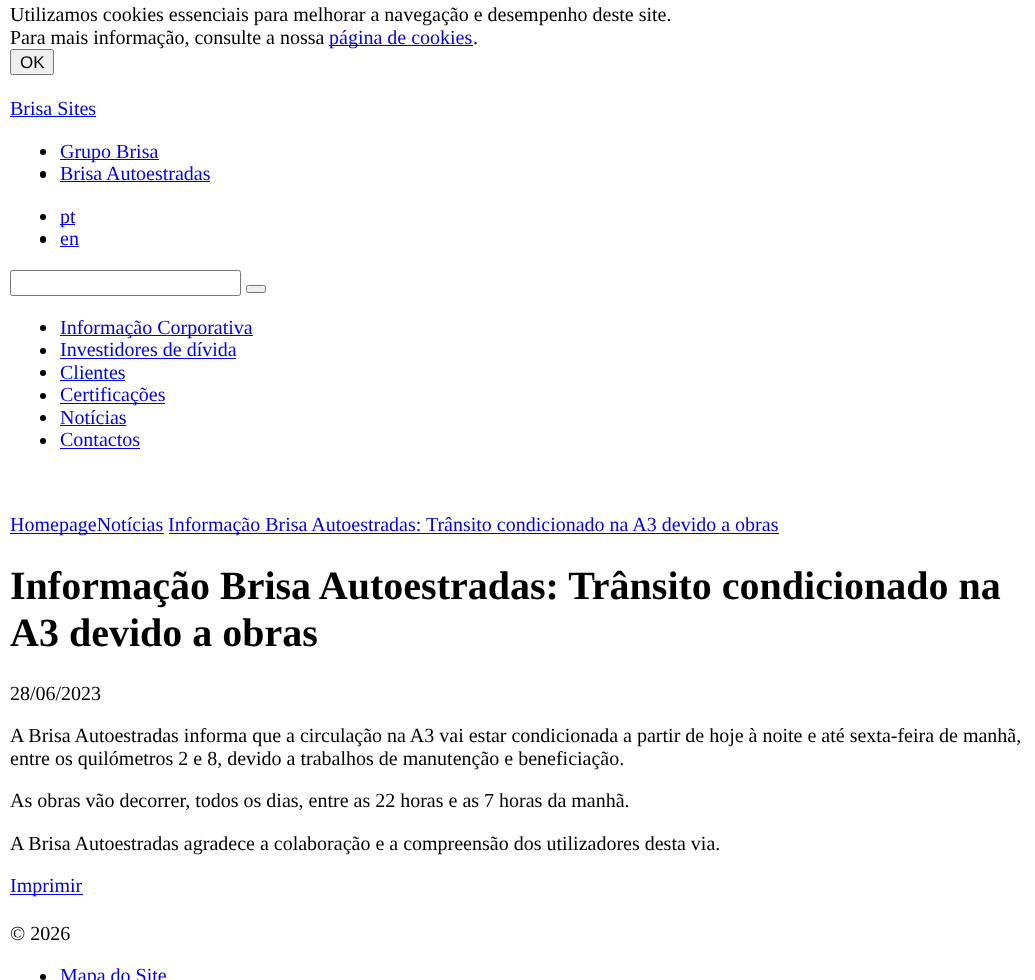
async function draw(canvas) {
	canvas.width = 1035;
	canvas.height = 980;
	const c = canvas.getContext('2d');
	c.miterLimit = 4;
	c.fontKerning = 'normal';

	c.fillStyle = '#fff';
	c.fillRect(0, 0, 1035, 980);
	c.font = '20px Liberation Serif';
	c.fillStyle = '#000';
	c.fillText('Utilizamos cookies essenciais para melhorar a navegação e desempenho deste site.', 10, 21);
	c.fillText('Para mais informação, consulte a nossa', 10, 44);
	c.fillStyle = '#00e';
	c.fillRect(329, 45, 144, 1);
	c.fillText('página de cookies', 329, 44);
	c.fillStyle = '#000';
	c.fillText('.', 473, 44);
	c.fillStyle = '#efefef';
	c.beginPath();
	c.roundRect(10.5, 49.5, 43, 25, 2);
	c.fill();
	c.strokeStyle = '#767676';
	c.stroke();
	c.font = '17px Liberation Sans';
	c.fillStyle = '#000';
	c.fillText('OK', 20, 68);
	c.font = '20px Liberation Serif';
	c.fillStyle = '#00e';
	c.fillText('Brisa Sites', 10, 115);
	c.fillRect(10, 116, 86, 1);
	c.fillStyle = '#000';
	c.beginPath();
	c.arc(43, 152, 3, 0, 2 * Math.PI);
	c.fill();
	c.fillStyle = '#00e';
	c.fillRect(60, 159, 99, 1);
	c.fillText('Grupo Brisa', 60, 158);
	c.fillStyle = '#000';
	c.beginPath();
	c.roundRect(40, 171, 6, 7, 3);
	c.fill();
	c.fillStyle = '#00e';
	c.fillText('Brisa Autoestradas', 60, 180);
	c.fillRect(60, 181, 150, 1);
	c.fillStyle = '#000';
	c.beginPath();
	c.arc(43, 217, 3, 0, 2 * Math.PI);
	c.fill();
	c.fillStyle = '#00e';
	c.fillRect(60, 224, 15, 1);
	c.fillText('pt', 60, 223);
	c.fillStyle = '#000';
	c.beginPath();
	c.roundRect(40, 236, 6, 7, 3);
	c.fill();
	c.fillStyle = '#00e';
	c.fillText('en', 60, 245);
	c.fillRect(60, 246, 19, 1);
	c.beginPath();
	c.roundRect(10.5, 270.5, 230, 25, 2);
	c.stroke();
	c.fillStyle = '#efefef';
	c.beginPath();
	c.roundRect(246.5, 285.5, 19, 7, 2);
	c.fill();
	c.stroke();
	c.fillStyle = '#000';
	c.beginPath();
	c.arc(43, 328, 3, 0, 2 * Math.PI);
	c.fill();
	c.fillStyle = '#00e';
	c.fillRect(60, 335, 193, 1);
	c.fillText('Informação Corporativa', 60, 334);
	c.fillStyle = '#000';
	c.beginPath();
	c.arc(43, 351, 3, 0, 2 * Math.PI);
	c.fill();
	c.fillStyle = '#00e';
	c.fillText('Investidores de dívida', 60, 356);
	c.fillRect(60, 358, 176, 1);
	c.fillStyle = '#000';
	c.beginPath();
	c.arc(43, 373, 3, 0, 2 * Math.PI);
	c.fill();
	c.fillStyle = '#00e';
	c.fillText('Clientes', 60, 379);
	c.fillRect(60, 380, 65, 1);
	c.fillStyle = '#000';
	c.beginPath();
	c.arc(43, 396, 3, 0, 2 * Math.PI);
	c.fill();
	c.fillStyle = '#00e';
	c.fillRect(60, 403, 105, 1);
	c.fillText('Certificações', 60, 401);
	c.fillStyle = '#000';
	c.beginPath();
	c.arc(43, 418, 3, 0, 2 * Math.PI);
	c.fill();
	c.fillStyle = '#00e';
	c.fillText('Notícias', 60, 424);
	c.fillRect(60, 425, 66, 1);
	c.fillStyle = '#000';
	c.beginPath();
	c.arc(43, 441, 3, 0, 2 * Math.PI);
	c.fill();
	c.fillStyle = '#00e';
	c.fillText('Contactos', 60, 446);
	c.fillRect(60, 448, 80, 1);
	c.fillRect(10, 533, 154, 1);
	c.fillText('HomepageNotícias', 10, 531);
	c.fillRect(169, 533, 610, 1);
	c.fillText('Informação Brisa Autoestradas: Trânsito condicionado na A3 devido a obras', 168, 531);
	c.font = 'bold 40px Liberation Serif';
	c.fillStyle = '#000';
	c.fillText('Informação Brisa Autoestradas: Trânsito condicionado na', 10, 599);
	c.fillText('A3 devido a obras', 10, 646);
	c.font = '20px Liberation Serif';
	for (const [text, x, y] of [
		['28/06/2023', 10, 700],
		['A Brisa Autoestradas informa que a circulação na A3 vai estar condicionada a partir de hoje à noite e até sexta-feira de manhã,', 10, 742],
		['entre os quilómetros 2 e 8, devido a trabalhos de manutenção e beneficiação.', 10, 765],
		['As obras vão decorrer, todos os dias, entre as 22 horas e as 7 horas da manhã.', 10, 807],
		['A Brisa Autoestradas agradece a colaboração e a compreensão dos utilizadores desta via.', 10, 850],
	]) {
		c.fillText(text, x, y);
	}
	c.fillStyle = '#00e';
	c.fillRect(10, 894, 73, 1);
	c.fillText('Imprimir', 10, 892);
	c.fillStyle = '#000';
	c.fillText('© 2026', 10, 940);
	c.beginPath();
	c.arc(43, 977, 3, 0, 2 * Math.PI);
	c.fill();
	c.fillStyle = '#00e';
	c.fillText('Mapa do Site', 60, 982);
}

draw(document.querySelector('canvas'));
